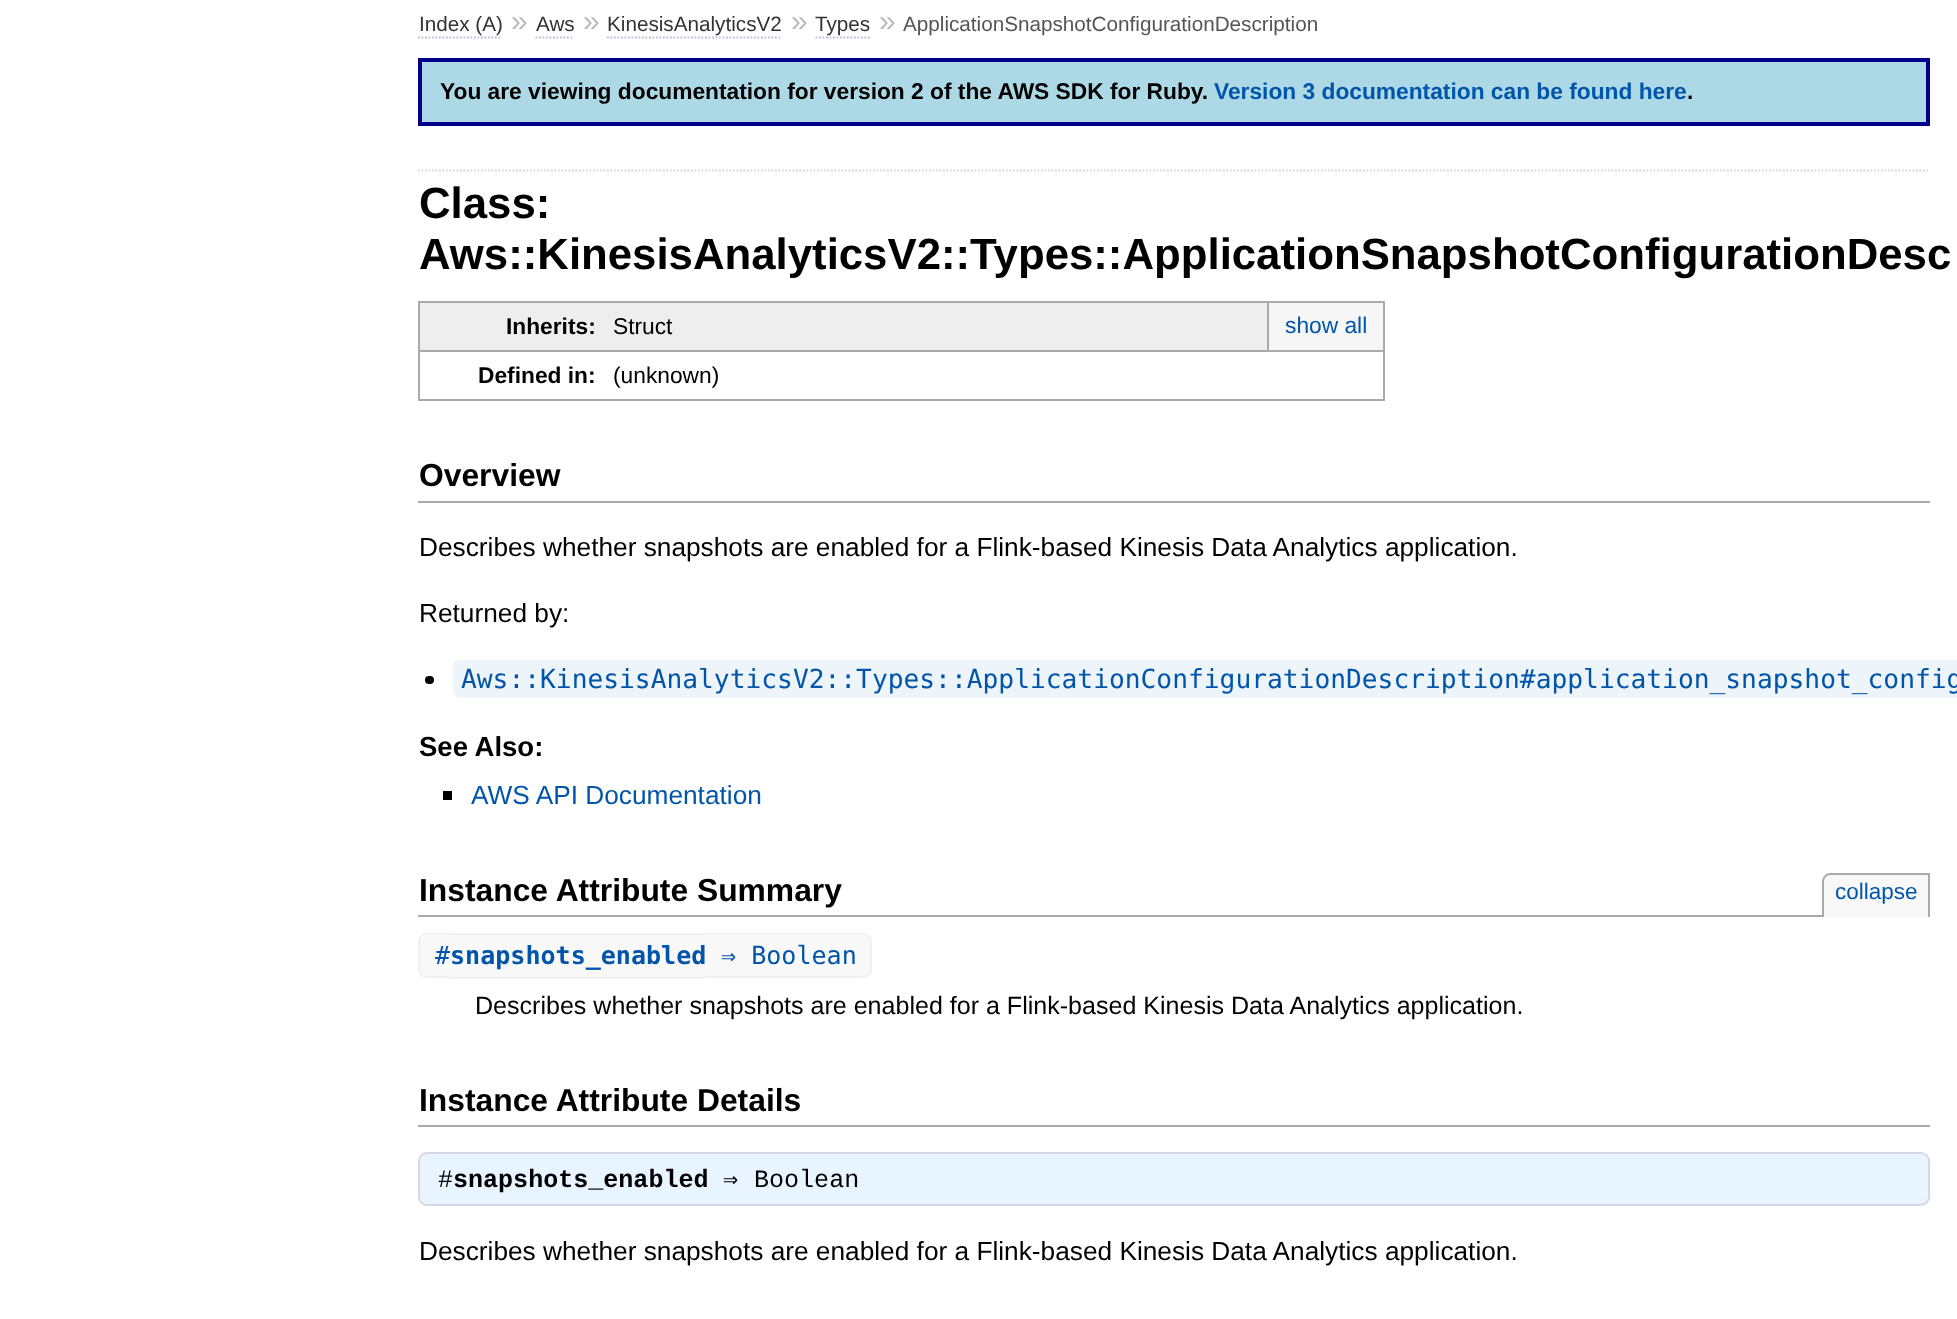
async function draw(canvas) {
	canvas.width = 1957;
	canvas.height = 1319;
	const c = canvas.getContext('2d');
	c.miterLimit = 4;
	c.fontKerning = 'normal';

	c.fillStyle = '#fff';
	c.fillRect(0, 0, 1957, 1319);
	c.font = '20.7px Liberation Sans';
	c.fillStyle = '#333';
	c.fillText('Index (A)', 419, 31);
	c.beginPath();
	c.moveTo(418, 37.5);
	c.lineTo(502, 37.5);
	c.strokeStyle = '#bbd';
	c.lineWidth = 1.8;
	c.setLineDash([1.75, 1.75]);
	c.stroke();
	c.font = '30px Liberation Sans';
	c.fillStyle = '#bbb';
	c.fillText('»', 511, 31);
	c.font = '20.7px Liberation Sans';
	c.fillStyle = '#333';
	c.fillText('Aws', 536, 31);
	c.beginPath();
	c.moveTo(535.5, 37.5);
	c.lineTo(574, 37.5);
	c.stroke();
	c.font = '30px Liberation Sans';
	c.fillStyle = '#bbb';
	c.fillText('»', 583, 31);
	c.font = '20.7px Liberation Sans';
	c.fillStyle = '#333';
	c.fillText('KinesisAnalyticsV2', 607, 31);
	c.beginPath();
	c.moveTo(607, 37.5);
	c.lineTo(782, 37.5);
	c.stroke();
	c.font = '30px Liberation Sans';
	c.fillStyle = '#bbb';
	c.fillText('»', 791, 31);
	c.font = '20.7px Liberation Sans';
	c.fillStyle = '#333';
	c.fillText('Types', 815, 31);
	c.beginPath();
	c.moveTo(815.5, 37.5);
	c.lineTo(870, 37.5);
	c.stroke();
	c.font = '30px Liberation Sans';
	c.fillStyle = '#bbb';
	c.fillText('»', 879, 31);
	c.font = '20.7px Liberation Sans';
	c.fillStyle = '#555';
	c.fillText('ApplicationSnapshotConfigurationDescription', 903, 31);
	c.fillStyle = '#add8e6';
	c.beginPath();
	c.rect(420, 60, 1508, 64);
	c.fill();
	c.strokeStyle = '#00008b';
	c.lineWidth = 4;
	c.setLineDash([]);
	c.stroke();
	c.font = 'bold 22.75px Liberation Sans';
	c.fillStyle = '#000';
	c.fillText('You are viewing documentation for version 2 of the AWS SDK for Ruby.', 440, 99);
	c.fillStyle = '#05a';
	c.fillText('Version 3 documentation can be found here', 1214, 99);
	c.fillStyle = '#000';
	c.fillText('.', 1687, 99);
	c.beginPath();
	c.moveTo(418, 170.5);
	c.lineTo(1930, 170.5);
	c.strokeStyle = '#d5d5d5';
	c.lineWidth = 1.8;
	c.setLineDash([1.75, 1.75]);
	c.stroke();
	c.font = 'bold 43.75px Liberation Sans';
	c.fillText('Class:', 419, 218);
	c.fillText('Aws::KinesisAnalyticsV2::Types::ApplicationSnapshotConfigurationDesc', 419, 269);
	for (const [x, y, w, h, color] of [
		[420, 303, 847, 47, '#eee'],
		[418, 301, 966, 2, '#aaa'],
		[418, 301, 2, 49, '#aaa'],
	]) {
		c.fillStyle = color;
		c.fillRect(x, y, w, h);
	}
	c.font = 'bold 22.75px Liberation Sans';
	c.fillStyle = '#000';
	c.fillText('Inherits:', 506, 334);
	c.fillStyle = '#aaa';
	c.fillRect(418, 350, 966, 2);
	c.fillRect(1383, 301, 2, 100);
	c.font = '22.75px Liberation Sans';
	c.fillStyle = '#000';
	c.fillText('Struct', 613, 334);
	c.fillStyle = '#f6f6f6';
	c.fillRect(1269, 303, 114, 47);
	c.fillStyle = '#aaa';
	c.fillRect(1267, 303, 2, 47);
	c.fillStyle = '#05a';
	c.fillText('show all', 1285, 333);
	c.fillStyle = '#aaa';
	c.fillRect(418, 399, 195, 2);
	c.fillRect(418, 350, 2, 51);
	c.font = 'bold 22.75px Liberation Sans';
	c.fillStyle = '#000';
	c.fillText('Defined in:', 478, 383);
	c.fillStyle = '#aaa';
	c.fillRect(613, 399, 771, 2);
	c.font = '22.75px Liberation Sans';
	c.fillStyle = '#000';
	c.fillText('(unknown)', 613, 383);
	c.fillStyle = '#aaa';
	c.fillRect(418, 501, 1512, 2);
	c.font = 'bold 31.8px Liberation Sans';
	c.fillStyle = '#000';
	c.fillText('Overview', 419, 486);
	c.font = '26.25px Liberation Sans';
	c.fillText('Describes whether snapshots are enabled for a Flink-based Kinesis Data Analytics application.', 419, 556);
	c.fillText('Returned by:', 419, 622);
	c.beginPath();
	c.roundRect(425, 676, 9, 8, 4);
	c.fill();
	c.fillStyle = '#edf4fa';
	c.beginPath();
	c.moveTo(460, 660);
	c.lineTo(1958, 660);
	c.lineTo(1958, 698);
	c.lineTo(460, 698);
	c.bezierCurveTo(456, 698, 453, 695, 453, 691);
	c.lineTo(453, 667);
	c.bezierCurveTo(453, 663, 456, 660, 460, 660);
	c.closePath();
	c.fill();
	c.font = '26.25px DejaVu Sans Mono';
	c.fillStyle = '#05a';
	c.fillText('Aws::KinesisAnalyticsV2::Types::ApplicationConfigurationDescription#application_snapshot_config', 461, 688);
	c.font = 'bold 27.5px Liberation Sans';
	c.fillStyle = '#000';
	c.fillText('See Also:', 419, 756);
	c.fillRect(443, 791, 9, 9);
	c.font = '26.25px Liberation Sans';
	c.fillStyle = '#05a';
	c.fillText('AWS API Documentation', 471, 804);
	c.fillStyle = '#aaa';
	c.fillRect(418, 915, 1404, 2);
	c.font = 'bold 31.8px Liberation Sans';
	c.fillStyle = '#000';
	c.fillText('Instance Attribute Summary', 419, 901);
	c.fillStyle = '#f8f8f8';
	c.beginPath();
	c.roundRect(1822, 873, 108, 44, [9, 0, 0, 0]);
	c.fill();
	c.fillStyle = '#aaa';
	c.beginPath();
	c.moveTo(1830, 873);
	c.lineTo(1930, 873);
	c.lineTo(1930, 917);
	c.lineTo(1822, 917);
	c.lineTo(1822, 882);
	c.bezierCurveTo(1822, 877, 1826, 873, 1830, 873);
	c.closePath();
	c.moveTo(1830, 875);
	c.lineTo(1928, 875);
	c.lineTo(1928, 917);
	c.lineTo(1824, 917);
	c.lineTo(1824, 882);
	c.bezierCurveTo(1824, 878, 1827, 875, 1830, 875);
	c.closePath();
	c.fill('evenodd');
	c.font = '22.5px Liberation Sans';
	c.fillStyle = '#05a';
	c.fillText('collapse', 1835, 899);
	c.fillStyle = '#f8f8f8';
	c.beginPath();
	c.roundRect(418, 933, 32, 45, [9, 0, 0, 9]);
	c.fill();
	c.fillStyle = '#f0f0f0';
	c.beginPath();
	c.moveTo(427, 933);
	c.lineTo(450, 933);
	c.lineTo(450, 978);
	c.lineTo(427, 978);
	c.bezierCurveTo(422, 978, 418, 974, 418, 970);
	c.lineTo(418, 942);
	c.bezierCurveTo(418, 937, 422, 933, 427, 933);
	c.closePath();
	c.moveTo(427, 934);
	c.lineTo(450, 934);
	c.lineTo(450, 976);
	c.lineTo(427, 976);
	c.bezierCurveTo(423, 976, 420, 973, 420, 970);
	c.lineTo(420, 942);
	c.bezierCurveTo(420, 938, 423, 934, 427, 934);
	c.closePath();
	c.fill('evenodd');
	c.font = '25.05px DejaVu Sans Mono';
	c.fillStyle = '#05a';
	c.fillText('#', 435, 964);
	c.fillStyle = '#f8f8f8';
	c.fillRect(450, 935, 255, 42);
	c.fillStyle = '#f0f0f0';
	c.fillRect(450, 933, 255, 2);
	c.font = 'bold 25.05px DejaVu Sans Mono';
	c.fillStyle = '#05a';
	c.fillText('snapshots_enabled', 450, 964);
	c.fillStyle = '#f0f0f0';
	c.fillRect(450, 977, 255, 2);
	c.fillStyle = '#f8f8f8';
	c.beginPath();
	c.roundRect(705, 933, 167, 45, [0, 9, 9, 0]);
	c.fill();
	c.fillStyle = '#f0f0f0';
	c.beginPath();
	c.moveTo(705, 933);
	c.lineTo(863, 933);
	c.bezierCurveTo(868, 933, 872, 937, 872, 942);
	c.lineTo(872, 970);
	c.bezierCurveTo(872, 974, 868, 978, 863, 978);
	c.lineTo(705, 978);
	c.closePath();
	c.moveTo(705, 934);
	c.lineTo(863, 934);
	c.bezierCurveTo(867, 934, 870, 938, 870, 942);
	c.lineTo(870, 970);
	c.bezierCurveTo(870, 973, 867, 976, 863, 976);
	c.lineTo(705, 976);
	c.closePath();
	c.fill('evenodd');
	c.font = '25.05px DejaVu Sans Mono';
	c.fillStyle = '#05a';
	c.fillText('⇒ Boolean', 721, 964);
	c.font = '25.05px Liberation Sans';
	c.fillStyle = '#000';
	c.fillText('Describes whether snapshots are enabled for a Flink-based Kinesis Data Analytics application.', 475, 1014);
	c.fillStyle = '#aaa';
	c.fillRect(418, 1125, 1512, 2);
	c.font = 'bold 31.8px Liberation Sans';
	c.fillStyle = '#000';
	c.fillText('Instance Attribute Details', 419, 1111);
	c.fillStyle = '#e8f4ff';
	c.beginPath();
	c.roundRect(419, 1153, 1510, 52, 8);
	c.fill();
	c.strokeStyle = '#d8d8e5';
	c.lineWidth = 2;
	c.setLineDash([]);
	c.stroke();
	c.font = '25.05px Liberation Mono';
	c.fillStyle = '#000';
	c.fillText('#', 438, 1187);
	c.font = 'bold 25.05px Liberation Mono';
	c.fillText('snapshots_enabled', 453, 1187);
	c.font = '25.05px DejaVu Sans Mono';
	c.fillText('⇒', 723, 1187);
	c.font = '25.05px Liberation Mono';
	c.fillText('Boolean', 754, 1187);
	c.font = '26.25px Liberation Sans';
	c.fillText('Describes whether snapshots are enabled for a Flink-based Kinesis Data Analytics application.', 419, 1260);
}

draw(document.querySelector('canvas'));
